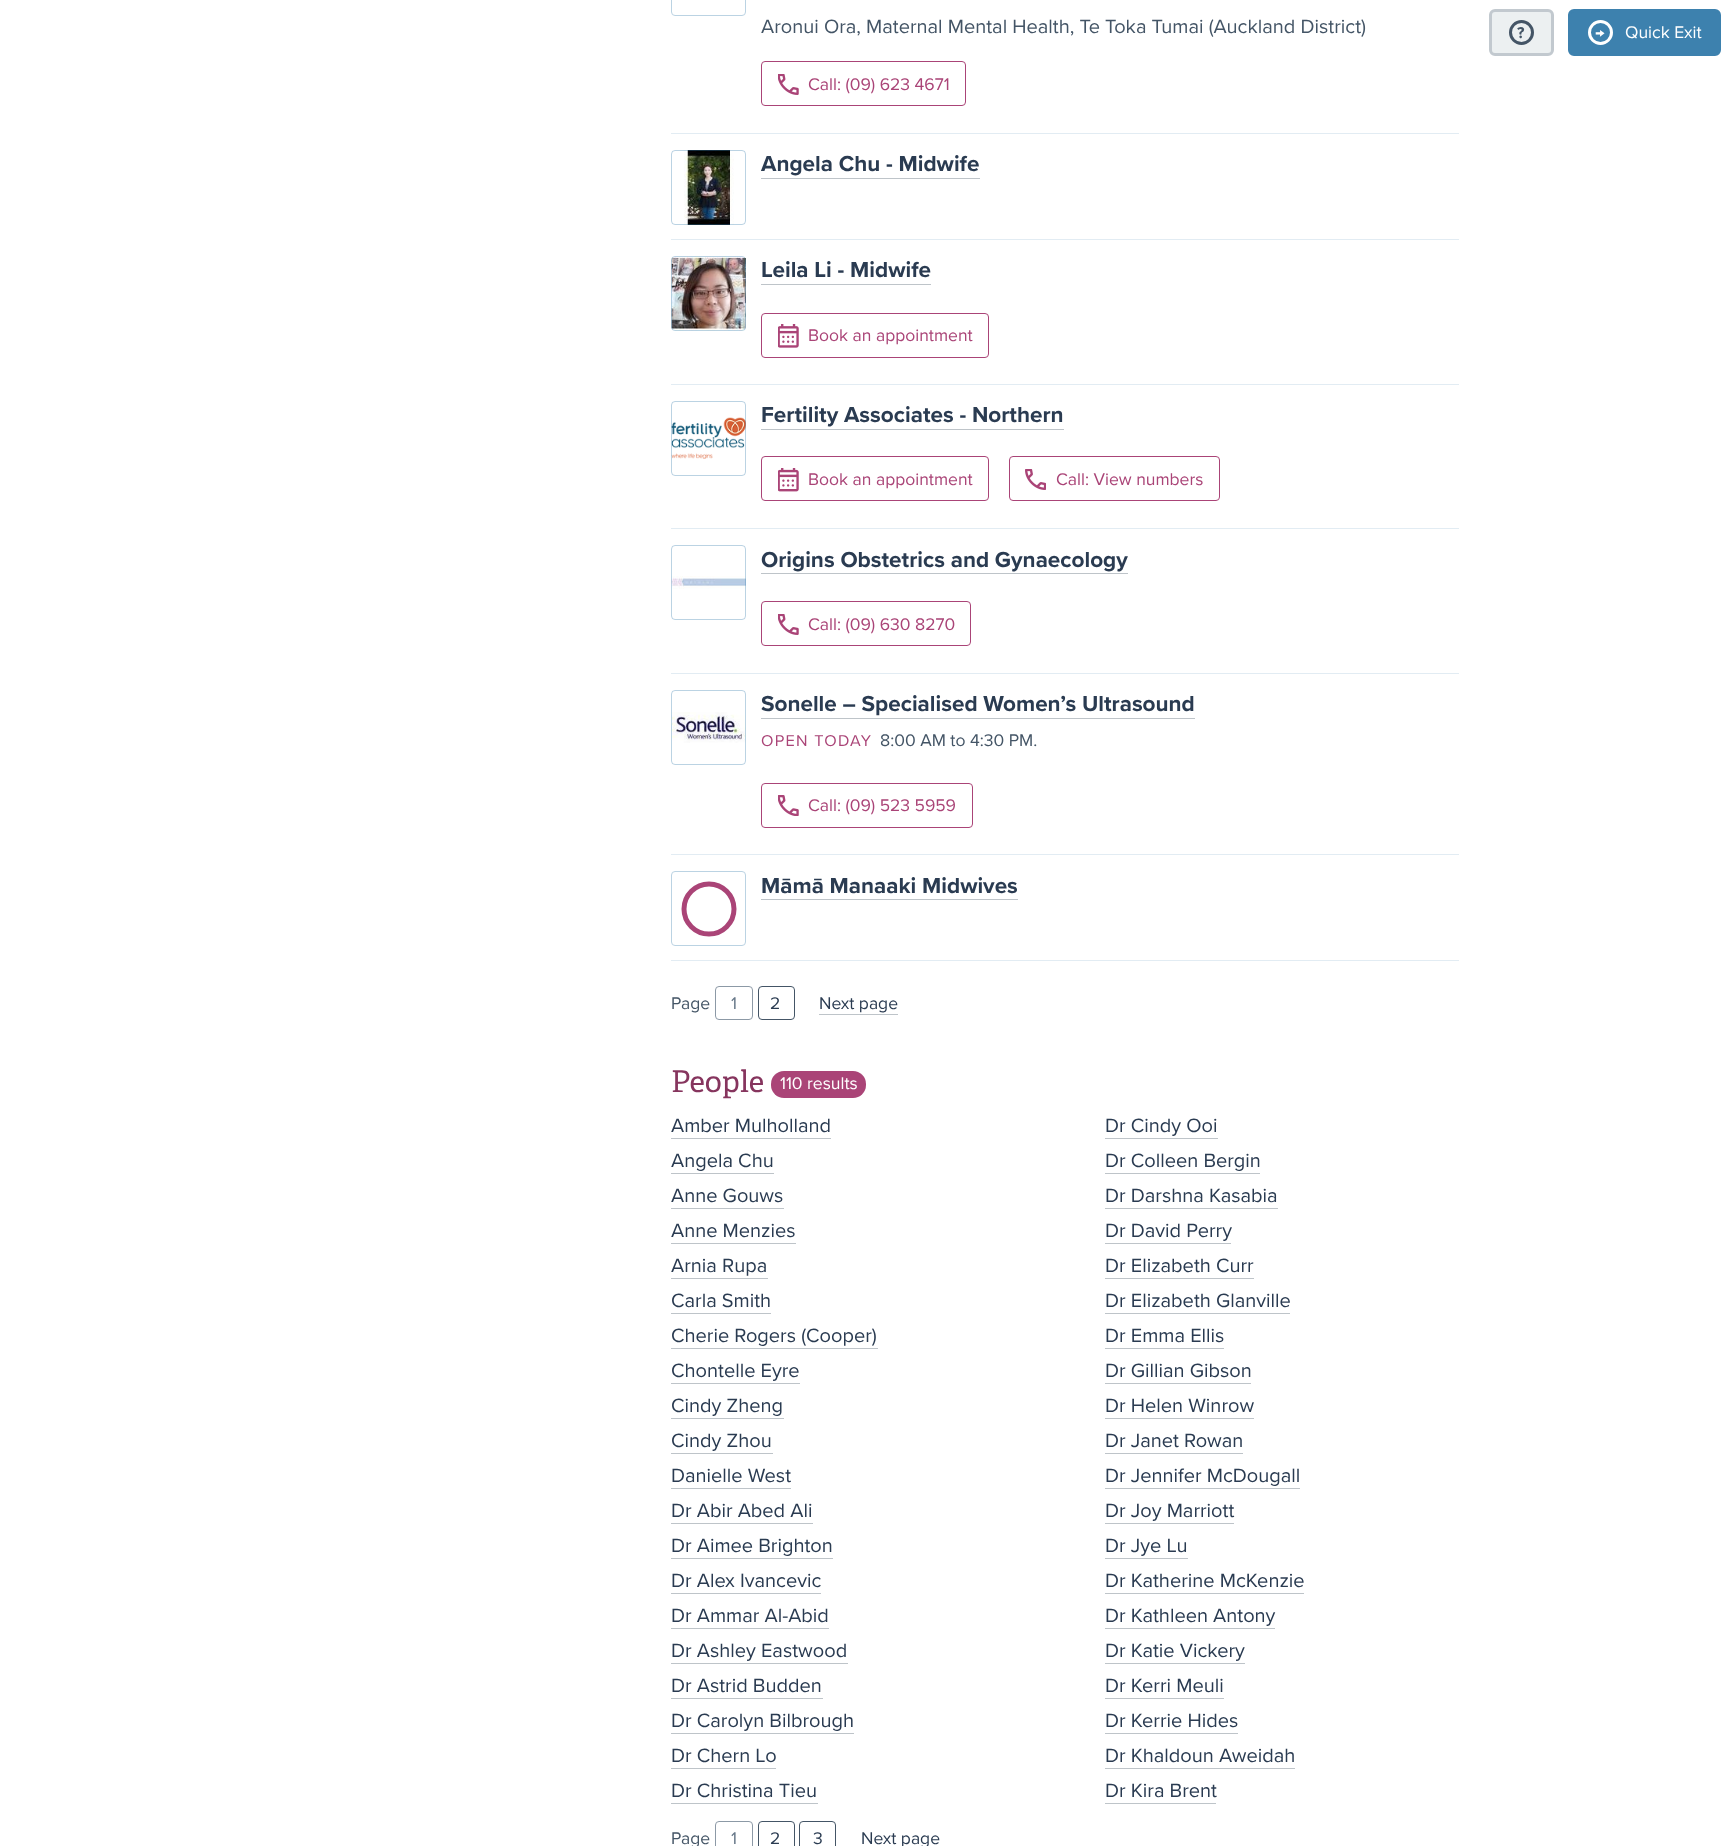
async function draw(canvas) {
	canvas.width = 1729;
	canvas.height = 1846;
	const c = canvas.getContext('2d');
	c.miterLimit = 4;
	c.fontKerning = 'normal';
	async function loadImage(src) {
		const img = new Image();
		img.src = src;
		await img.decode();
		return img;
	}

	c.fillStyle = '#fff';
	c.fillRect(0, 0, 1729, 1846);
	c.fillStyle = '#e2ecf3';
	c.fillRect(671, 133, 788, 1);
	c.beginPath();
	c.roundRect(671.5, -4.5, 74, 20, 3.5);
	c.strokeStyle = '#bbd3e3';
	c.stroke();
	c.font = '20px Proxima Nova';
	c.fillStyle = '#456';
	c.fillText('Aronui Ora, Maternal Mental Health, Te Toka Tumai (Auckland District)', 761, 33);
	c.beginPath();
	c.roundRect(761.5, 61.5, 204, 44, 3.5);
	c.strokeStyle = '#a47';
	c.stroke();
	c.drawImage(await loadImage('img1.png'), 778, 74, 21, 21);
	c.font = '17.5px Proxima Nova';
	c.fillStyle = '#a47';
	c.fillText('Call: (09) 623 4671', 808, 90);
	c.fillStyle = '#e2ecf3';
	c.fillRect(671, 239, 788, 1);
	c.drawImage(await loadImage('img2.png'), 684, 150, 50, 75);
	c.beginPath();
	c.roundRect(671.5, 150.5, 74, 74, 3.5);
	c.strokeStyle = '#3d81ae59';
	c.stroke();
	c.font = 'bold 22.5px Proxima Nova';
	c.fillStyle = '#2a3b51';
	c.fillText('Angela Chu - Midwife', 761, 171);
	c.fillStyle = '#bec4c9';
	c.fillRect(761, 178, 219, 1);
	c.fillStyle = '#e2ecf3';
	c.fillRect(671, 384, 788, 1);
	c.drawImage(await loadImage('img3.png'), 671, 256, 75, 75);
	c.beginPath();
	c.roundRect(671.5, 256.5, 74, 74, 3.5);
	c.stroke();
	c.fillStyle = '#2a3b51';
	c.fillText('Leila Li - Midwife', 761, 277);
	c.fillStyle = '#bec4c9';
	c.fillRect(761, 284, 170, 1);
	c.beginPath();
	c.roundRect(761.5, 313.5, 227, 44, 3.5);
	c.strokeStyle = '#a47';
	c.stroke();
	c.drawImage(await loadImage('img4.png'), 778, 324, 21, 24);
	c.font = '17.5px Proxima Nova';
	c.fillStyle = '#a47';
	c.fillText('Book an appointment', 808, 341);
	c.fillStyle = '#e2ecf3';
	c.fillRect(671, 528, 788, 1);
	c.drawImage(await loadImage('img5.png'), 671, 417, 75, 42);
	c.beginPath();
	c.roundRect(671.5, 401.5, 74, 74, 3.5);
	c.strokeStyle = '#3d81ae59';
	c.stroke();
	c.font = 'bold 22.5px Proxima Nova';
	c.fillStyle = '#2a3b51';
	c.fillText('Fertility Associates - Northern', 761, 422);
	c.fillStyle = '#bec4c9';
	c.fillRect(761, 429, 303, 1);
	c.beginPath();
	c.roundRect(761.5, 456.5, 227, 44, 3.5);
	c.strokeStyle = '#a47';
	c.stroke();
	c.drawImage(await loadImage('img6.png'), 778, 468, 21, 24);
	c.font = '17.5px Proxima Nova';
	c.fillStyle = '#a47';
	c.fillText('Book an appointment', 808, 485);
	c.beginPath();
	c.roundRect(1009.5, 456.5, 210, 44, 3.5);
	c.stroke();
	c.drawImage(await loadImage('img7.png'), 1025, 469, 21, 21);
	c.fillText('Call: View numbers', 1056, 485);
	c.fillStyle = '#e2ecf3';
	c.fillRect(671, 673, 788, 1);
	c.drawImage(await loadImage('img8.png'), 671, 576, 75, 13);
	c.beginPath();
	c.roundRect(671.5, 545.5, 74, 74, 3.5);
	c.strokeStyle = '#3d81ae59';
	c.stroke();
	c.font = 'bold 22.5px Proxima Nova';
	c.fillStyle = '#2a3b51';
	c.fillText('Origins Obstetrics and Gynaecology', 761, 567);
	c.fillStyle = '#bec4c9';
	c.fillRect(761, 573, 367, 1);
	c.beginPath();
	c.roundRect(761.5, 601.5, 209, 44, 3.5);
	c.strokeStyle = '#a47';
	c.stroke();
	c.drawImage(await loadImage('img1.png'), 778, 614, 21, 21);
	c.font = '17.5px Proxima Nova';
	c.fillStyle = '#a47';
	c.fillText('Call: (09) 630 8270', 808, 630);
	c.fillStyle = '#e2ecf3';
	c.fillRect(671, 854, 788, 1);
	c.drawImage(await loadImage('img9.png'), 671, 712, 75, 31);
	c.beginPath();
	c.roundRect(671.5, 690.5, 74, 74, 3.5);
	c.strokeStyle = '#3d81ae59';
	c.stroke();
	c.font = 'bold 22.5px Proxima Nova';
	c.fillStyle = '#2a3b51';
	c.fillText('Sonelle – Specialised Women’s Ultrasound', 761, 711);
	c.fillStyle = '#bec4c9';
	c.fillRect(761, 718, 434, 1);
	c.letterSpacing = '1.25px';
	c.font = '16.25px Proxima Nova';
	c.fillStyle = '#a47';
	c.fillText('OPEN TODAY', 761, 746);
	c.letterSpacing = '0px';
	c.font = '17.5px Proxima Nova';
	c.fillStyle = '#456';
	c.fillText('8:00 AM to 4:30 PM.', 880, 746);
	c.beginPath();
	c.roundRect(761.5, 783.5, 211, 44, 3.5);
	c.strokeStyle = '#a47';
	c.stroke();
	c.drawImage(await loadImage('img10.png'), 778, 795, 21, 21);
	c.fillStyle = '#a47';
	c.fillText('Call: (09) 523 5959', 808, 811);
	c.fillStyle = '#e2ecf3';
	c.fillRect(671, 960, 788, 1);
	c.beginPath();
	c.arc(709, 909, 25, 0, 2 * Math.PI);
	c.lineWidth = 5;
	c.stroke();
	c.beginPath();
	c.roundRect(671.5, 871.5, 74, 74, 3.5);
	c.strokeStyle = '#bbd3e3';
	c.lineWidth = 1;
	c.stroke();
	c.font = 'bold 22.5px Proxima Nova';
	c.fillStyle = '#2a3b51';
	c.fillText('Māmā Manaaki Midwives', 761, 893);
	c.fillStyle = '#bec4c9';
	c.fillRect(761, 899, 257, 1);
	c.font = '17.5px Proxima Nova';
	c.fillStyle = '#456';
	c.fillText('Page', 671, 1009);
	c.beginPath();
	c.roundRect(715.5, 986.5, 37, 33, 3.5);
	c.strokeStyle = '#8c99a6';
	c.stroke();
	c.fillStyle = '#678';
	c.fillText('1', 731, 1009);
	c.beginPath();
	c.roundRect(758.5, 986.5, 36, 33, 3.5);
	c.strokeStyle = '#456';
	c.stroke();
	c.fillStyle = '#2a3b51';
	c.fillText('2', 770, 1009);
	c.fillText('Next page', 819, 1009);
	c.fillStyle = '#bec4c9';
	c.fillRect(819, 1014, 79, 1);
	c.font = '30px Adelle';
	c.fillStyle = '#86355e';
	c.fillText('People', 671, 1092);
	c.fillStyle = '#a47';
	c.beginPath();
	c.roundRect(771, 1071, 95, 27, 13);
	c.fill();
	c.font = '17.5px Proxima Nova';
	c.fillStyle = '#fff';
	c.fillText('110 results', 780, 1089);
	c.font = '20px Proxima Nova';
	c.fillStyle = '#2a3b51';
	c.fillText('Amber Mulholland', 671, 1132);
	c.fillStyle = '#bec4c9';
	c.fillRect(671, 1138, 160, 1);
	c.fillStyle = '#2a3b51';
	c.fillText('Angela Chu', 671, 1167);
	c.fillStyle = '#bec4c9';
	c.fillRect(671, 1173, 103, 1);
	c.fillStyle = '#2a3b51';
	c.fillText('Anne Gouws', 671, 1202);
	c.fillStyle = '#bec4c9';
	c.fillRect(671, 1208, 113, 1);
	c.fillStyle = '#2a3b51';
	c.fillText('Anne Menzies', 671, 1237);
	c.fillStyle = '#bec4c9';
	c.fillRect(671, 1243, 125, 1);
	c.fillStyle = '#2a3b51';
	c.fillText('Arnia Rupa', 671, 1272);
	c.fillStyle = '#bec4c9';
	c.fillRect(671, 1278, 97, 1);
	c.fillStyle = '#2a3b51';
	c.fillText('Carla Smith', 671, 1307);
	c.fillStyle = '#bec4c9';
	c.fillRect(671, 1313, 100, 1);
	c.fillStyle = '#2a3b51';
	c.fillText('Cherie Rogers (Cooper)', 671, 1342);
	c.fillStyle = '#bec4c9';
	c.fillRect(671, 1348, 207, 1);
	c.fillStyle = '#2a3b51';
	c.fillText('Chontelle Eyre', 671, 1377);
	c.fillStyle = '#bec4c9';
	c.fillRect(671, 1383, 129, 1);
	c.fillStyle = '#2a3b51';
	c.fillText('Cindy Zheng', 671, 1412);
	c.fillStyle = '#bec4c9';
	c.fillRect(671, 1418, 113, 1);
	c.fillStyle = '#2a3b51';
	c.fillText('Cindy Zhou', 671, 1447);
	c.fillStyle = '#bec4c9';
	c.fillRect(671, 1453, 102, 1);
	c.fillStyle = '#2a3b51';
	c.fillText('Danielle West', 671, 1482);
	c.fillStyle = '#bec4c9';
	c.fillRect(671, 1488, 120, 1);
	c.fillStyle = '#2a3b51';
	c.fillText('Dr Abir Abed Ali', 671, 1517);
	c.fillStyle = '#bec4c9';
	c.fillRect(671, 1523, 142, 1);
	c.fillStyle = '#2a3b51';
	c.fillText('Dr Aimee Brighton', 671, 1552);
	c.fillStyle = '#bec4c9';
	c.fillRect(671, 1558, 162, 1);
	c.fillStyle = '#2a3b51';
	c.fillText('Dr Alex Ivancevic', 671, 1587);
	c.fillStyle = '#bec4c9';
	c.fillRect(671, 1593, 150, 1);
	c.fillStyle = '#2a3b51';
	c.fillText('Dr Ammar Al-Abid', 671, 1622);
	c.fillStyle = '#bec4c9';
	c.fillRect(671, 1628, 158, 1);
	c.fillStyle = '#2a3b51';
	c.fillText('Dr Ashley Eastwood', 671, 1657);
	c.fillStyle = '#bec4c9';
	c.fillRect(671, 1663, 177, 1);
	c.fillStyle = '#2a3b51';
	c.fillText('Dr Astrid Budden', 671, 1692);
	c.fillStyle = '#bec4c9';
	c.fillRect(671, 1698, 152, 1);
	c.fillStyle = '#2a3b51';
	c.fillText('Dr Carolyn Bilbrough', 671, 1727);
	c.fillStyle = '#bec4c9';
	c.fillRect(671, 1733, 183, 1);
	c.fillStyle = '#2a3b51';
	c.fillText('Dr Chern Lo', 671, 1762);
	c.fillStyle = '#bec4c9';
	c.fillRect(671, 1768, 105, 1);
	c.fillStyle = '#2a3b51';
	c.fillText('Dr Christina Tieu', 671, 1797);
	c.fillStyle = '#bec4c9';
	c.fillRect(671, 1803, 147, 1);
	c.fillStyle = '#2a3b51';
	c.fillText('Dr Cindy Ooi', 1105, 1132);
	c.fillStyle = '#bec4c9';
	c.fillRect(1105, 1138, 113, 1);
	c.fillStyle = '#2a3b51';
	c.fillText('Dr Colleen Bergin', 1105, 1167);
	c.fillStyle = '#bec4c9';
	c.fillRect(1105, 1173, 155, 1);
	c.fillStyle = '#2a3b51';
	c.fillText('Dr Darshna Kasabia', 1105, 1202);
	c.fillStyle = '#bec4c9';
	c.fillRect(1105, 1208, 173, 1);
	c.fillStyle = '#2a3b51';
	c.fillText('Dr David Perry', 1105, 1237);
	c.fillStyle = '#bec4c9';
	c.fillRect(1105, 1243, 126, 1);
	c.fillStyle = '#2a3b51';
	c.fillText('Dr Elizabeth Curr', 1105, 1272);
	c.fillStyle = '#bec4c9';
	c.fillRect(1105, 1278, 149, 1);
	c.fillStyle = '#2a3b51';
	c.fillText('Dr Elizabeth Glanville', 1105, 1307);
	c.fillStyle = '#bec4c9';
	c.fillRect(1105, 1313, 185, 1);
	c.fillStyle = '#2a3b51';
	c.fillText('Dr Emma Ellis', 1105, 1342);
	c.fillStyle = '#bec4c9';
	c.fillRect(1105, 1348, 119, 1);
	c.fillStyle = '#2a3b51';
	c.fillText('Dr Gillian Gibson', 1105, 1377);
	c.fillStyle = '#bec4c9';
	c.fillRect(1105, 1383, 146, 1);
	c.fillStyle = '#2a3b51';
	c.fillText('Dr Helen Winrow', 1105, 1412);
	c.fillStyle = '#bec4c9';
	c.fillRect(1105, 1418, 149, 1);
	c.fillStyle = '#2a3b51';
	c.fillText('Dr Janet Rowan', 1105, 1447);
	c.fillStyle = '#bec4c9';
	c.fillRect(1105, 1453, 138, 1);
	c.fillStyle = '#2a3b51';
	c.fillText('Dr Jennifer McDougall', 1105, 1482);
	c.fillStyle = '#bec4c9';
	c.fillRect(1105, 1488, 195, 1);
	c.fillStyle = '#2a3b51';
	c.fillText('Dr Joy Marriott', 1105, 1517);
	c.fillStyle = '#bec4c9';
	c.fillRect(1105, 1523, 129, 1);
	c.fillStyle = '#2a3b51';
	c.fillText('Dr Jye Lu', 1105, 1552);
	c.fillStyle = '#bec4c9';
	c.fillRect(1105, 1558, 83, 1);
	c.fillStyle = '#2a3b51';
	c.fillText('Dr Katherine McKenzie', 1105, 1587);
	c.fillStyle = '#bec4c9';
	c.fillRect(1105, 1593, 199, 1);
	c.fillStyle = '#2a3b51';
	c.fillText('Dr Kathleen Antony', 1105, 1622);
	c.fillStyle = '#bec4c9';
	c.fillRect(1105, 1628, 170, 1);
	c.fillStyle = '#2a3b51';
	c.fillText('Dr Katie Vickery', 1105, 1657);
	c.fillStyle = '#bec4c9';
	c.fillRect(1105, 1663, 140, 1);
	c.fillStyle = '#2a3b51';
	c.fillText('Dr Kerri Meuli', 1105, 1692);
	c.fillStyle = '#bec4c9';
	c.fillRect(1105, 1698, 119, 1);
	c.fillStyle = '#2a3b51';
	c.fillText('Dr Kerrie Hides', 1105, 1727);
	c.fillStyle = '#bec4c9';
	c.fillRect(1105, 1733, 133, 1);
	c.fillStyle = '#2a3b51';
	c.fillText('Dr Khaldoun Aweidah', 1105, 1762);
	c.fillStyle = '#bec4c9';
	c.fillRect(1105, 1768, 190, 1);
	c.fillStyle = '#2a3b51';
	c.fillText('Dr Kira Brent', 1105, 1797);
	c.fillStyle = '#bec4c9';
	c.fillRect(1105, 1803, 111, 1);
	c.font = '17.5px Proxima Nova';
	c.fillStyle = '#456';
	c.fillText('Page', 671, 1844);
	c.beginPath();
	c.roundRect(715.5, 1821.5, 37, 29, 3.5);
	c.strokeStyle = '#8c99a6';
	c.stroke();
	c.fillStyle = '#678';
	c.fillText('1', 731, 1844);
	c.beginPath();
	c.roundRect(758.5, 1821.5, 36, 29, 3.5);
	c.strokeStyle = '#456';
	c.stroke();
	c.fillStyle = '#2a3b51';
	c.fillText('2', 770, 1844);
	c.beginPath();
	c.roundRect(799.5, 1821.5, 36, 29, 3.5);
	c.stroke();
	c.fillText('3', 813, 1844);
	c.fillText('Next page', 861, 1844);
	c.fillStyle = '#ecf0f1';
	c.beginPath();
	c.roundRect(1490.5, 10.5, 62, 44, 4.5);
	c.fill();
	c.strokeStyle = '#c2c9cf';
	c.lineWidth = 3;
	c.stroke();
	c.beginPath();
	c.arc(1521.5, 32.5, 11, 0, 2 * Math.PI);
	c.strokeStyle = '#456';
	c.stroke();
	c.font = 'bold 16.25px Proxima Nova';
	c.fillStyle = '#456';
	c.fillText('?', 1517, 38);
	c.fillStyle = '#3d81ae';
	c.beginPath();
	c.roundRect(1569.5, 10.5, 150, 44, 4.5);
	c.fill();
	c.strokeStyle = '#3d81ae';
	c.stroke();
	c.beginPath();
	c.arc(1600.5, 32.5, 11, 0, 2 * Math.PI);
	c.strokeStyle = '#fff';
	c.stroke();
	c.fillStyle = '#fff';
	c.fillText('→', 1595, 38);
	c.font = '17.5px Proxima Nova';
	c.fillText('Quick Exit', 1625, 38);
}

draw(document.querySelector('canvas'));
